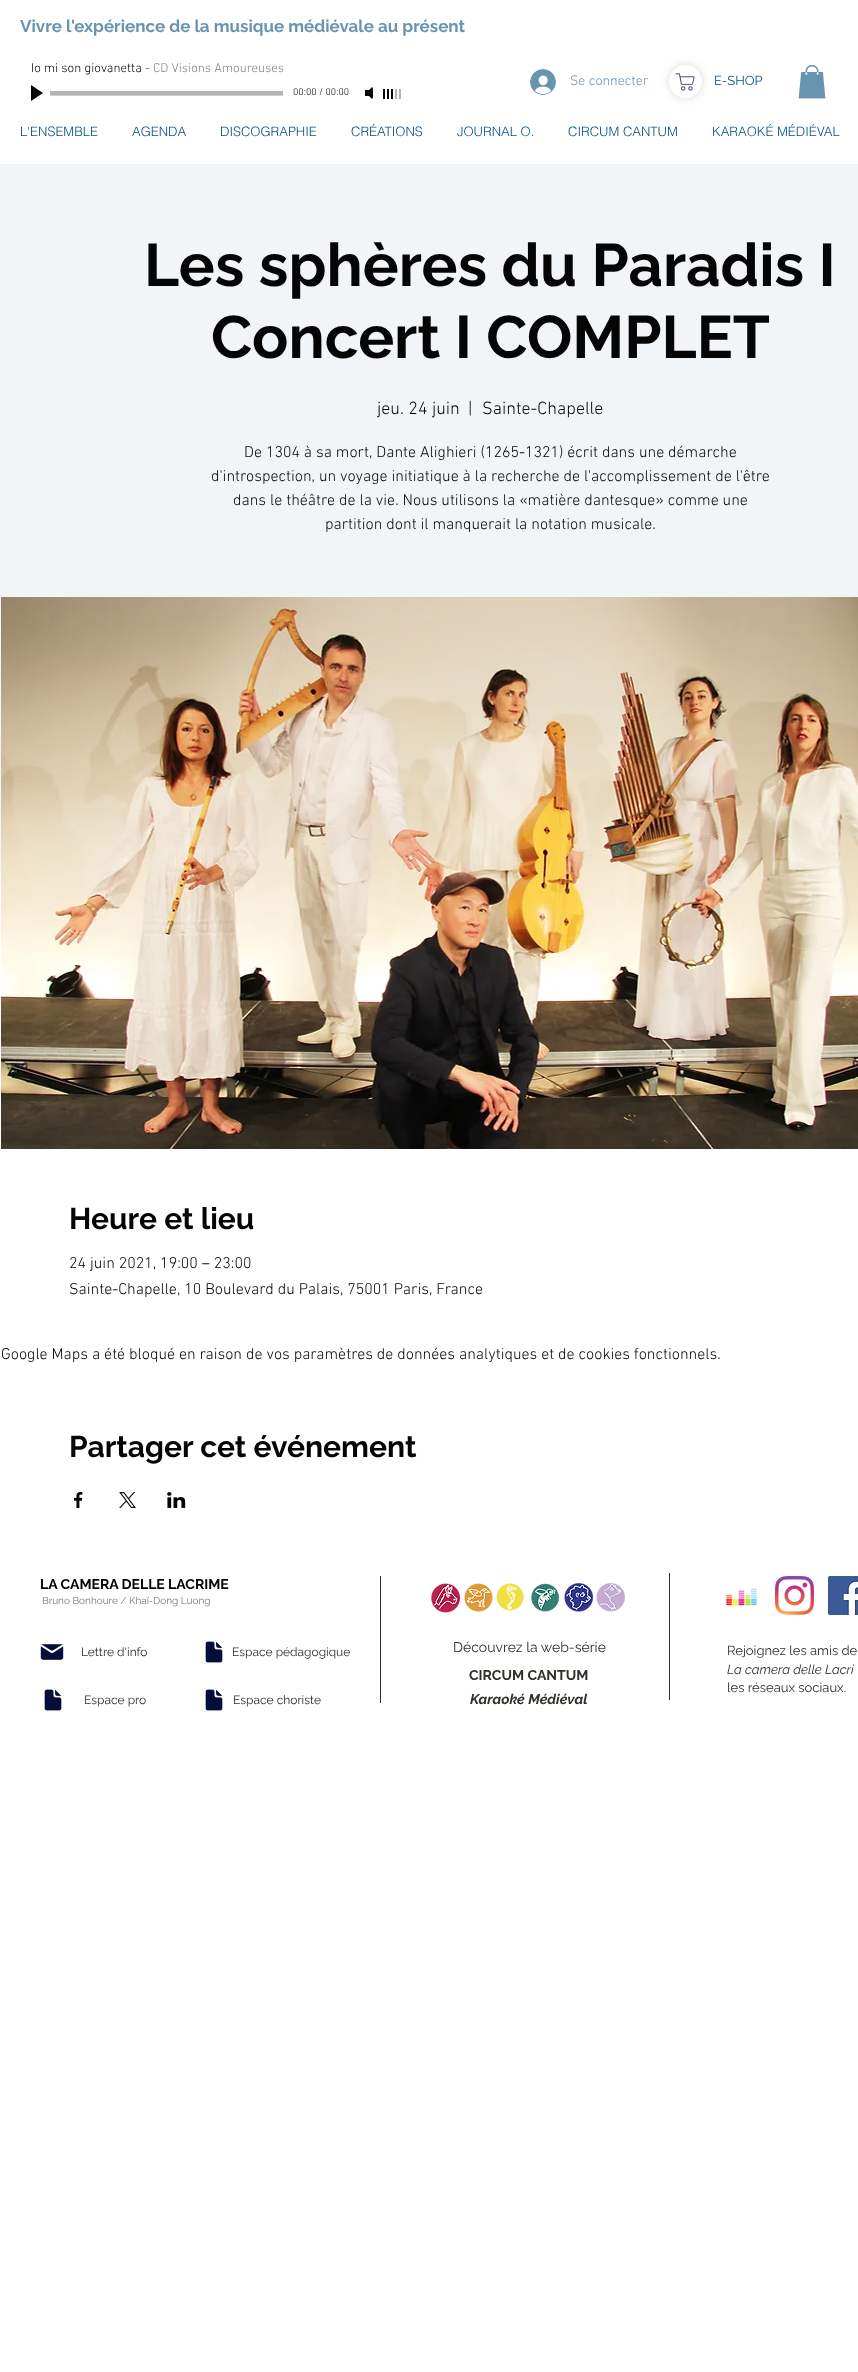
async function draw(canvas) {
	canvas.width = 858;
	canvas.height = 2372;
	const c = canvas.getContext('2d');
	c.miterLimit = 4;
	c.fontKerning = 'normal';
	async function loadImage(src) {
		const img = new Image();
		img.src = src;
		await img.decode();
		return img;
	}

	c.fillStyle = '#fff';
	c.fillRect(0, 0, 858, 2372);
	c.font = 'bold 17px Raleway';
	c.fillStyle = '#6894b0';
	c.fillText('Vivre l\'expérience de la musique médiévale au présent', 20, 32);
	c.font = '300 13px "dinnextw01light"';
	c.fillStyle = '#050505';
	c.fillText('Io mi son giovanetta -', 31, 72);
	c.fillStyle = '#828282';
	c.fillText('CD Visions Amoureuses', 153, 72);
	c.fillStyle = '#050505';
	c.beginPath();
	c.moveTo(31, 101);
	c.lineTo(31, 85);
	c.lineTo(43, 93);
	c.closePath();
	c.fill();
	c.fillStyle = '#b4b4b4';
	c.fillRect(50, 91, 233, 4);
	c.fillStyle = '#cbcbcb';
	c.fillRect(50, 95, 233, 1);
	c.font = '300 10px "dinnextw01light"';
	c.fillStyle = '#050505';
	c.fillText('00:00 / 00:00', 293, 95);
	c.beginPath();
	c.moveTo(366, 93);
	c.lineTo(372, 99);
	c.bezierCurveTo(373.5, 97.5, 373, 95, 373, 93);
	c.bezierCurveTo(373, 91, 373.5, 88.5, 372, 87);
	c.closePath();
	c.fill();
	for (const [x, y, w, h, color] of [
		[365, 90, 4, 6, '#050505'],
		[383, 89, 2, 10, '#050505'],
		[387, 89, 2, 10, '#050505'],
		[391, 89, 2, 10, '#050505'],
		[395, 89, 2, 10, '#b4b4b4'],
		[399, 89, 2, 10, '#b4b4b4'],
	]) {
		c.fillStyle = color;
		c.fillRect(x, y, w, h);
	}
	c.drawImage(await loadImage('img1.png'), 530, 69, 26, 26);
	c.font = '300 14px "dinnextw01light"';
	c.fillStyle = '#6894b0';
	c.fillText('Se connecter', 570, 85);
	c.fillStyle = '#00000026';
	c.filter = 'blur(4px)';
	c.beginPath();
	c.roundRect(669, 65, 33, 33, 16.5);
	c.fill();
	c.filter = 'none';
	c.fillStyle = '#fff';
	c.beginPath();
	c.arc(685.5, 81.5, 16.5, 0, 2 * Math.PI);
	c.fill();
	c.drawImage(await loadImage('img2.png'), 675, 73, 20, 18);
	c.font = '13px Raleway';
	c.fillStyle = '#045184';
	c.fillText('E-SHOP', 714, 85);
	c.drawImage(await loadImage('img3.png'), 798, 65, 28, 34);
	c.font = '300 13px helvetica';
	for (const [text, x, y] of [
		['L\'ENSEMBLE', 20, 136],
		['AGENDA', 132, 136],
		['DISCOGRAPHIE', 220, 136],
		['CRÉATIONS', 351, 136],
		['JOURNAL O.', 457, 136],
		['CIRCUM CANTUM', 568, 136],
		['KARAOKÉ MÉDIÉVAL', 712, 136],
	]) {
		c.fillText(text, x, y);
	}
	c.fillStyle = '#f1f5f8';
	c.fillRect(0, 164, 858, 709);
	c.font = 'bold 60px Raleway';
	c.fillStyle = '#050505';
	c.fillText('Les sphères du Paradis I', 144, 286);
	c.fillText('Concert I COMPLET', 211, 358);
	c.font = '300 18px "dinnextw01light"';
	for (const [text, x, y] of [
		['jeu. 24 juin', 377, 414],
		['|', 468, 414],
		['Sainte-Chapelle', 482, 414],
	]) {
		c.fillText(text, x, y);
	}
	c.font = '300 16px "dinnextw01light"';
	for (const [text, x, y] of [
		['De 1304 à sa mort, Dante Alighieri (1265-1321) écrit dans une démarche', 244, 457],
		['d\'introspection, un voyage initiatique à la recherche de l\'accomplissement de l\'être', 211, 481],
		['dans le théâtre de la vie. Nous utilisons la «matière dantesque» comme une', 233, 505],
		['partition dont il manquerait la notation musicale.', 325, 529],
	]) {
		c.fillText(text, x, y);
	}
	c.drawImage(await loadImage('img4.png'), 1, 597, 857, 552);
	c.font = 'bold 30px Raleway';
	c.fillText('Heure et lieu', 69, 1229);
	c.font = '300 16px "dinnextw01light"';
	for (const [text, x, y] of [
		['24 juin 2021, 19:00 – 23:00', 69, 1268],
		['Sainte-Chapelle, 10 Boulevard du Palais, 75001 Paris, France', 69, 1294],
		['Google Maps a été bloqué en raison de vos paramètres de données analytiques et de cookies fonctionnels.', 1, 1359],
	]) {
		c.fillText(text, x, y);
	}
	c.font = 'bold 30px Raleway';
	c.fillText('Partager cet événement', 69, 1457);
	c.drawImage(await loadImage('img5.png'), 74, 1492, 9, 16);
	c.drawImage(await loadImage('img6.png'), 119, 1492, 17, 16);
	c.drawImage(await loadImage('img7.png'), 167, 1492, 19, 16);
	c.font = 'bold 14px Raleway';
	c.fillText('LA CAMERA DELLE LACRIME', 40, 1589);
	c.fillStyle = '#30302a';
	c.fillRect(380, 1576, 1, 127);
	c.drawImage(await loadImage('img8.png'), 431, 1583, 30, 30);
	c.drawImage(await loadImage('img9.png'), 464, 1583, 29, 29);
	c.drawImage(await loadImage('img10.png'), 496, 1583, 28, 28);
	c.drawImage(await loadImage('img11.png'), 531, 1583, 29, 29);
	c.drawImage(await loadImage('img12.png'), 564, 1582, 30, 30);
	c.drawImage(await loadImage('img13.png'), 596, 1582, 29, 30);
	c.fillRect(669, 1573, 1, 127);
	c.drawImage(await loadImage('img14.png'), 726, 1588, 31, 18);
	c.drawImage(await loadImage('img15.png'), 775, 1576, 39, 39);
	c.drawImage(await loadImage('img16.png'), 828, 1576, 30, 39);
	c.font = '10px Raleway';
	c.fillStyle = '#797979';
	c.fillText('Bruno Bonhoure / Khaï-Dong Luong', 42, 1604);
	c.drawImage(await loadImage('img17.png'), 40, 1644, 24, 16);
	c.font = '12px Raleway';
	c.fillStyle = '#30302a';
	c.fillText('Lettre d\'info', 81, 1656);
	c.drawImage(await loadImage('img18.png'), 205, 1641, 18, 22);
	c.fillText('Espace pédagogique', 232, 1656);
	c.font = '14px Raleway';
	c.fillText('Découvrez la web-série', 453, 1652);
	c.font = '13px Raleway';
	c.fillText('Rejoignez les amis de', 727, 1655);
	c.font = 'italic 13px Raleway';
	c.fillText('La camera delle Lacri', 727, 1674);
	c.font = '13px Raleway';
	c.fillText('les réseaux sociaux.', 727, 1692);
	c.font = 'bold 14px Raleway';
	c.fillText('CIRCUM CANTUM', 469, 1680);
	c.drawImage(await loadImage('img18.png'), 44, 1689, 18, 22);
	c.font = '12px Raleway';
	c.fillText('Espace pro', 84, 1704);
	c.drawImage(await loadImage('img18.png'), 205, 1689, 18, 22);
	c.fillText('Espace choriste', 233, 1704);
	c.font = 'italic bold 14px Raleway';
	c.fillText('Karaoké Médiéval', 470, 1704);
}

draw(document.querySelector('canvas'));
